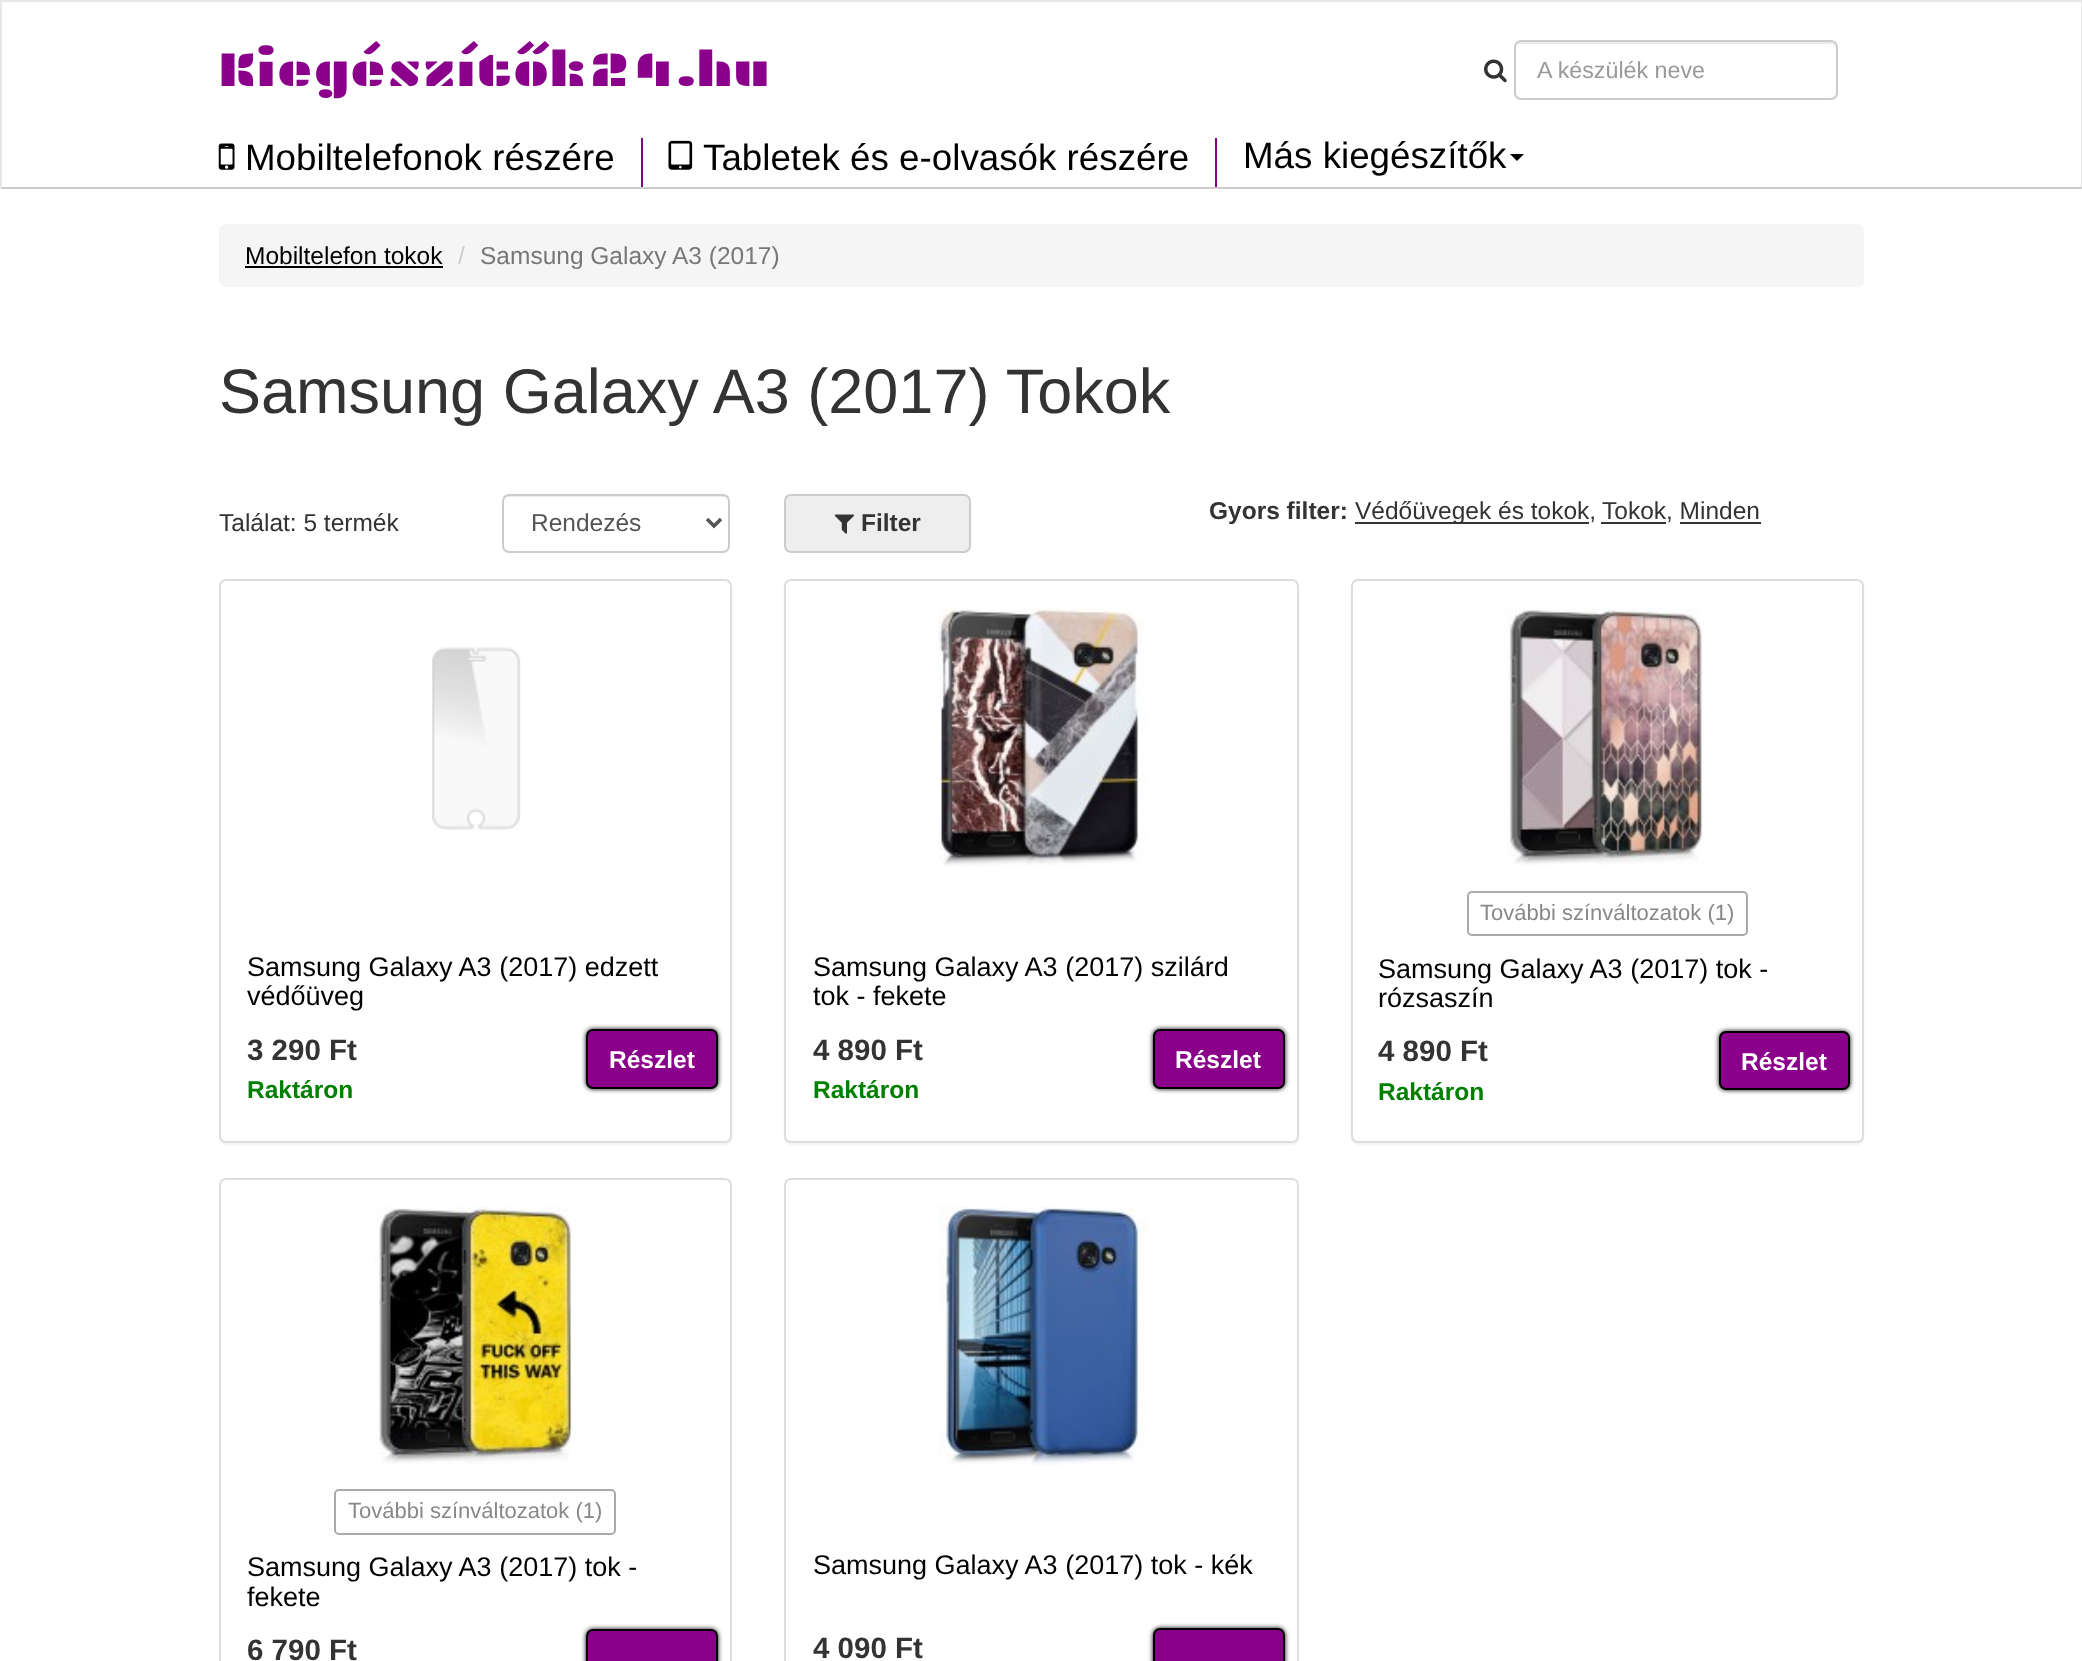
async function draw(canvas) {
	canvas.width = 2082;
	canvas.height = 1661;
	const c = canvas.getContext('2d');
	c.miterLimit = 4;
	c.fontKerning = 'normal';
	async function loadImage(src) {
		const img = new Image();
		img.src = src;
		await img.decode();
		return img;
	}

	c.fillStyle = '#fff';
	c.fillRect(0, 0, 2082, 1661);
	for (const [x, y, w, h, color] of [
		[0, 0, 2082, 2, '#e7e7e7'],
		[2081, 0, 1, 189, '#e7e7e7'],
		[0, 187, 2082, 2, '#ccc'],
		[0, 0, 2, 189, '#e7e7e7'],
	]) {
		c.fillStyle = color;
		c.fillRect(x, y, w, h);
	}
	c.font = '49px Plaster';
	c.fillStyle = '#8b008b';
	c.fillText('Kiegészítők24.hu', 219, 86);
	c.drawImage(await loadImage('img1.png'), 1484, 59, 23, 24);
	c.fillStyle = '#ececec';
	c.beginPath();
	c.moveTo(1521, 44);
	c.lineTo(1830, 44);
	c.bezierCurveTo(1833, 44, 1836, 46, 1836, 49);
	c.lineTo(1836, 47);
	c.bezierCurveTo(1836, 44, 1834, 42, 1831, 42);
	c.lineTo(1521, 42);
	c.bezierCurveTo(1518, 42, 1516, 44, 1516, 47);
	c.lineTo(1516, 49);
	c.bezierCurveTo(1516, 46, 1518, 44, 1521, 44);
	c.closePath();
	c.fill();
	c.beginPath();
	c.roundRect(1515, 41, 322, 58, 6);
	c.strokeStyle = '#ccc';
	c.lineWidth = 2;
	c.stroke();
	c.font = '23.25px Liberation Sans';
	c.fillStyle = '#999';
	c.fillText('A készülék neve', 1537, 78);
	c.drawImage(await loadImage('img2.png'), 218, 143, 17, 27);
	c.font = '36.75px Liberation Sans';
	c.fillStyle = '#000';
	c.fillText('Mobiltelefonok részére', 245, 170);
	c.fillStyle = '#8b008b';
	c.fillRect(641, 138, 2, 49);
	c.drawImage(await loadImage('img3.png'), 668, 140, 25, 30);
	c.fillStyle = '#000';
	c.fillText('Tabletek és e-olvasók részére', 703, 170);
	c.fillStyle = '#8b008b';
	c.fillRect(1215, 138, 2, 49);
	c.fillStyle = '#000';
	c.fillText('Más kiegészítők', 1243, 168);
	c.beginPath();
	c.moveTo(1510, 154);
	c.lineTo(1524, 154);
	c.lineTo(1517, 161);
	c.closePath();
	c.fill();
	c.fillStyle = '#f5f5f5';
	c.beginPath();
	c.roundRect(219, 224, 1645, 63, 7);
	c.fill();
	c.font = '24.5px Liberation Sans';
	c.fillStyle = '#000';
	c.fillText('Mobiltelefon tokok', 245, 264);
	c.fillRect(245, 266, 198, 2);
	c.fillStyle = '#ccc';
	c.fillText('/', 458, 264);
	c.fillStyle = '#777';
	c.fillText('Samsung Galaxy A3 (2017)', 480, 264);
	c.font = '63px Liberation Sans';
	c.fillStyle = '#333';
	c.fillText('Samsung Galaxy A3 (2017) Tokok', 219, 413);
	c.font = '24.5px Liberation Sans';
	c.fillText('Találat: 5 termék', 219, 531);
	c.fillStyle = '#ececec';
	c.beginPath();
	c.moveTo(509, 497);
	c.lineTo(723, 497);
	c.bezierCurveTo(726, 497, 728, 499, 728, 502);
	c.lineTo(728, 500);
	c.bezierCurveTo(728, 497, 726, 495, 723, 495);
	c.lineTo(509, 495);
	c.bezierCurveTo(506, 495, 504, 497, 504, 500);
	c.lineTo(504, 502);
	c.bezierCurveTo(504, 499, 506, 497, 509, 497);
	c.closePath();
	c.fill();
	c.beginPath();
	c.roundRect(503, 495, 226, 57, 6);
	c.stroke();
	c.beginPath();
	c.moveTo(707, 519);
	c.lineTo(714, 526);
	c.lineTo(721, 519);
	c.strokeStyle = '#555';
	c.lineWidth = 3.5;
	c.stroke();
	c.fillStyle = '#555';
	c.fillText('Rendezés', 531, 531);
	c.fillStyle = '#eee';
	c.beginPath();
	c.roundRect(785, 495, 185, 57, 6);
	c.fill();
	c.strokeStyle = '#ccc';
	c.lineWidth = 2;
	c.stroke();
	c.drawImage(await loadImage('img4.png'), 834, 514, 20, 20);
	c.font = 'bold 24.5px Liberation Sans';
	c.fillStyle = '#333';
	c.fillText('Filter', 861, 531);
	c.fillText('Gyors filter:', 1209, 519);
	c.fillRect(1355, 522, 234, 2);
	c.font = '24.5px Liberation Sans';
	c.fillText('Védőüvegek és tokok,', 1355, 519);
	c.fillRect(1601, 522, 65, 2);
	c.fillText('Tokok, Minden', 1602, 519);
	c.fillRect(1680, 522, 81, 2);
	c.fillStyle = '#0000000d';
	c.filter = 'blur(1px)';
	c.beginPath();
	c.roundRect(219, 581, 513, 564, 7);
	c.fill();
	c.filter = 'none';
	c.fillStyle = '#fff';
	c.beginPath();
	c.roundRect(220, 580, 511, 562, 6);
	c.fill();
	c.strokeStyle = '#ddd';
	c.stroke();
	c.drawImage(await loadImage('img5.png'), 432, 647, 89, 183);
	c.font = '27px Liberation Sans';
	c.fillStyle = '#000';
	c.fillText('Samsung Galaxy A3 (2017) edzett', 247, 976);
	c.fillText('védőüveg', 247, 1005);
	c.font = 'bold 29.5px Liberation Sans';
	c.fillStyle = '#333';
	c.fillText('3 290 Ft', 247, 1060);
	c.font = 'bold 24.5px Liberation Sans';
	c.fillStyle = '#008000';
	c.fillText('Raktáron', 247, 1098);
	c.fillStyle = '#000';
	c.filter = 'blur(2.5px)';
	c.beginPath();
	c.roundRect(586, 1029, 132, 60, 7);
	c.fill();
	c.filter = 'none';
	c.fillStyle = '#8b008b';
	c.beginPath();
	c.roundRect(587, 1030, 130, 58, 6);
	c.fill();
	c.strokeStyle = '#000';
	c.stroke();
	c.fillStyle = '#fff';
	c.fillText('Részlet', 609, 1068);
	c.fillStyle = '#0000000d';
	c.filter = 'blur(1px)';
	c.beginPath();
	c.roundRect(784, 581, 515, 564, 7);
	c.fill();
	c.filter = 'none';
	c.fillStyle = '#fff';
	c.beginPath();
	c.roundRect(785, 580, 513, 562, 6);
	c.fill();
	c.strokeStyle = '#ddd';
	c.stroke();
	c.drawImage(await loadImage('img6.png'), 938, 607, 210, 260);
	c.font = '27px Liberation Sans';
	c.fillStyle = '#000';
	c.fillText('Samsung Galaxy A3 (2017) szilárd', 813, 976);
	c.fillText('tok - fekete', 813, 1005);
	c.font = 'bold 29.5px Liberation Sans';
	c.fillStyle = '#333';
	c.fillText('4 890 Ft', 813, 1060);
	c.font = 'bold 24.5px Liberation Sans';
	c.fillStyle = '#008000';
	c.fillText('Raktáron', 813, 1098);
	c.fillStyle = '#000';
	c.filter = 'blur(2.5px)';
	c.beginPath();
	c.roundRect(1153, 1029, 132, 60, 7);
	c.fill();
	c.filter = 'none';
	c.fillStyle = '#8b008b';
	c.beginPath();
	c.roundRect(1154, 1030, 130, 58, 6);
	c.fill();
	c.strokeStyle = '#000';
	c.stroke();
	c.fillStyle = '#fff';
	c.fillText('Részlet', 1175, 1068);
	c.fillStyle = '#0000000d';
	c.filter = 'blur(1px)';
	c.beginPath();
	c.roundRect(1351, 581, 513, 564, 7);
	c.fill();
	c.filter = 'none';
	c.fillStyle = '#fff';
	c.beginPath();
	c.roundRect(1352, 580, 511, 562, 6);
	c.fill();
	c.strokeStyle = '#ddd';
	c.stroke();
	c.drawImage(await loadImage('img7.png'), 1505, 607, 198, 258);
	c.beginPath();
	c.roundRect(1468, 892, 279, 43, 4);
	c.strokeStyle = '#aaa';
	c.stroke();
	c.font = '22px Liberation Sans';
	c.fillStyle = '#888';
	c.fillText('További színváltozatok (1)', 1480, 920);
	c.font = '27px Liberation Sans';
	c.fillStyle = '#000';
	c.fillText('Samsung Galaxy A3 (2017) tok -', 1378, 978);
	c.fillText('rózsaszín', 1378, 1007);
	c.font = 'bold 29.5px Liberation Sans';
	c.fillStyle = '#333';
	c.fillText('4 890 Ft', 1378, 1061);
	c.font = 'bold 24.5px Liberation Sans';
	c.fillStyle = '#008000';
	c.fillText('Raktáron', 1378, 1100);
	c.fillStyle = '#000';
	c.filter = 'blur(2.5px)';
	c.beginPath();
	c.roundRect(1719, 1031, 131, 59, 7);
	c.fill();
	c.filter = 'none';
	c.fillStyle = '#8b008b';
	c.beginPath();
	c.roundRect(1720, 1032, 129, 57, 6);
	c.fill();
	c.strokeStyle = '#000';
	c.stroke();
	c.fillStyle = '#fff';
	c.fillText('Részlet', 1741, 1070);
	c.beginPath();
	c.roundRect(220, 1179, 511, 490, 6);
	c.strokeStyle = '#ddd';
	c.stroke();
	c.drawImage(await loadImage('img8.png'), 375, 1206, 197, 258);
	c.beginPath();
	c.roundRect(335, 1490, 280, 44, 4);
	c.strokeStyle = '#aaa';
	c.stroke();
	c.font = '22px Liberation Sans';
	c.fillStyle = '#888';
	c.fillText('További színváltozatok (1)', 348, 1518);
	c.font = '27px Liberation Sans';
	c.fillStyle = '#000';
	c.fillText('Samsung Galaxy A3 (2017) tok -', 247, 1576);
	c.fillText('fekete', 247, 1606);
	c.font = 'bold 29.5px Liberation Sans';
	c.fillStyle = '#333';
	c.fillText('6 790 Ft', 247, 1660);
	c.fillStyle = '#000';
	c.filter = 'blur(2.5px)';
	c.beginPath();
	c.roundRect(586, 1629, 132, 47, 7);
	c.fill();
	c.filter = 'none';
	c.fillStyle = '#8b008b';
	c.beginPath();
	c.roundRect(587, 1630, 130, 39, 6);
	c.fill();
	c.strokeStyle = '#000';
	c.stroke();
	c.beginPath();
	c.roundRect(785, 1179, 513, 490, 6);
	c.strokeStyle = '#ddd';
	c.stroke();
	c.drawImage(await loadImage('img9.png'), 938, 1205, 211, 261);
	c.font = '27px Liberation Sans';
	c.fillStyle = '#000';
	c.fillText('Samsung Galaxy A3 (2017) tok - kék', 813, 1574);
	c.font = 'bold 29.5px Liberation Sans';
	c.fillStyle = '#333';
	c.fillText('4 090 Ft', 813, 1658);
	c.fillStyle = '#000';
	c.filter = 'blur(2.5px)';
	c.beginPath();
	c.roundRect(1153, 1628, 132, 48, 7);
	c.fill();
	c.filter = 'none';
	c.fillStyle = '#8b008b';
	c.beginPath();
	c.roundRect(1154, 1629, 130, 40, 6);
	c.fill();
	c.strokeStyle = '#000';
	c.stroke();
}

draw(document.querySelector('canvas'));
